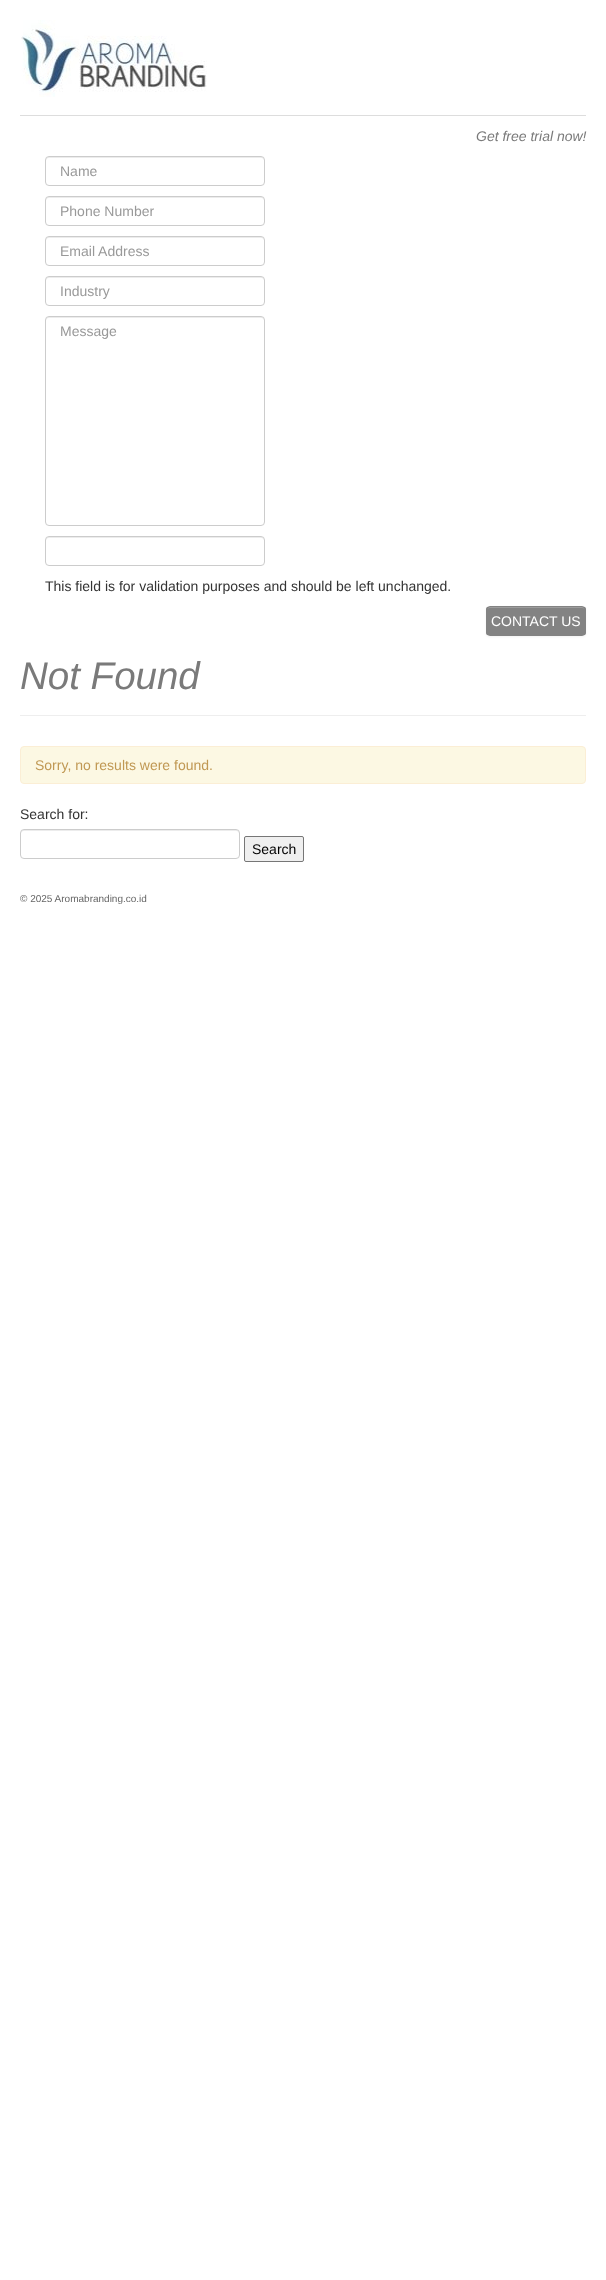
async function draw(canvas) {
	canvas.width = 606;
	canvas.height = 2280;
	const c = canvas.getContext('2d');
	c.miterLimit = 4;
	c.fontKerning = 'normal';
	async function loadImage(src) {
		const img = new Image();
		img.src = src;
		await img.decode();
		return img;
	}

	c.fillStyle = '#fff';
	c.fillRect(0, 0, 606, 2280);
	c.fillStyle = '#ddd';
	c.fillRect(20, 115, 566, 1);
	c.drawImage(await loadImage('img1.png'), 21, 20, 186, 77);
	c.font = 'italic 14px Liberation Sans';
	c.fillStyle = '#7a7a7a';
	c.fillText('Get free trial now!', 476, 141);
	c.fillStyle = '#ececec';
	c.beginPath();
	c.moveTo(49, 158);
	c.lineTo(261, 158);
	c.bezierCurveTo(263, 158, 264, 159, 264, 161);
	c.lineTo(264, 160);
	c.bezierCurveTo(264, 158, 263, 157, 261, 157);
	c.lineTo(49, 157);
	c.bezierCurveTo(47, 157, 46, 158, 46, 160);
	c.lineTo(46, 161);
	c.bezierCurveTo(46, 159, 47, 158, 49, 158);
	c.closePath();
	c.fill();
	c.beginPath();
	c.roundRect(45.5, 156.5, 219, 29, 3.5);
	c.strokeStyle = '#ccc';
	c.stroke();
	c.font = '14px Liberation Sans';
	c.fillStyle = '#999';
	c.fillText('Name', 60, 176);
	c.fillStyle = '#ececec';
	c.beginPath();
	c.moveTo(49, 198);
	c.lineTo(261, 198);
	c.bezierCurveTo(263, 198, 264, 199, 264, 201);
	c.lineTo(264, 200);
	c.bezierCurveTo(264, 198, 263, 197, 261, 197);
	c.lineTo(49, 197);
	c.bezierCurveTo(47, 197, 46, 198, 46, 200);
	c.lineTo(46, 201);
	c.bezierCurveTo(46, 199, 47, 198, 49, 198);
	c.closePath();
	c.fill();
	c.beginPath();
	c.roundRect(45.5, 196.5, 219, 29, 3.5);
	c.stroke();
	c.fillStyle = '#999';
	c.fillText('Phone Number', 60, 216);
	c.fillStyle = '#ececec';
	c.beginPath();
	c.moveTo(49, 238);
	c.lineTo(261, 238);
	c.bezierCurveTo(263, 238, 264, 239, 264, 241);
	c.lineTo(264, 240);
	c.bezierCurveTo(264, 238, 263, 237, 261, 237);
	c.lineTo(49, 237);
	c.bezierCurveTo(47, 237, 46, 238, 46, 240);
	c.lineTo(46, 241);
	c.bezierCurveTo(46, 239, 47, 238, 49, 238);
	c.closePath();
	c.fill();
	c.beginPath();
	c.roundRect(45.5, 236.5, 219, 29, 3.5);
	c.stroke();
	c.fillStyle = '#999';
	c.fillText('Email Address', 60, 256);
	c.fillStyle = '#ececec';
	c.beginPath();
	c.moveTo(49, 278);
	c.lineTo(261, 278);
	c.bezierCurveTo(263, 278, 264, 279, 264, 281);
	c.lineTo(264, 280);
	c.bezierCurveTo(264, 278, 263, 277, 261, 277);
	c.lineTo(49, 277);
	c.bezierCurveTo(47, 277, 46, 278, 46, 280);
	c.lineTo(46, 281);
	c.bezierCurveTo(46, 279, 47, 278, 49, 278);
	c.closePath();
	c.fill();
	c.beginPath();
	c.roundRect(45.5, 276.5, 219, 29, 3.5);
	c.stroke();
	c.fillStyle = '#999';
	c.fillText('Industry', 60, 296);
	c.fillStyle = '#ececec';
	c.beginPath();
	c.moveTo(49, 318);
	c.lineTo(261, 318);
	c.bezierCurveTo(263, 318, 264, 319, 264, 321);
	c.lineTo(264, 320);
	c.bezierCurveTo(264, 318, 263, 317, 261, 317);
	c.lineTo(49, 317);
	c.bezierCurveTo(47, 317, 46, 318, 46, 320);
	c.lineTo(46, 321);
	c.bezierCurveTo(46, 319, 47, 318, 49, 318);
	c.closePath();
	c.fill();
	c.beginPath();
	c.roundRect(45.5, 316.5, 219, 209, 3.5);
	c.stroke();
	c.fillStyle = '#999';
	c.fillText('Message', 60, 336);
	c.fillStyle = '#ececec';
	c.beginPath();
	c.moveTo(49, 538);
	c.lineTo(261, 538);
	c.bezierCurveTo(263, 538, 264, 539, 264, 541);
	c.lineTo(264, 540);
	c.bezierCurveTo(264, 538, 263, 537, 261, 537);
	c.lineTo(49, 537);
	c.bezierCurveTo(47, 537, 46, 538, 46, 540);
	c.lineTo(46, 541);
	c.bezierCurveTo(46, 539, 47, 538, 49, 538);
	c.closePath();
	c.fill();
	c.beginPath();
	c.roundRect(45.5, 536.5, 219, 29, 3.5);
	c.stroke();
	c.fillStyle = '#333';
	c.fillText('This field is for validation purposes and should be left unchanged.', 45, 591);
	c.fillStyle = '#0000000d';
	c.filter = 'blur(1px)';
	c.beginPath();
	c.roundRect(486, 607, 100, 30, 4);
	c.fill();
	c.filter = 'none';
	c.save();
	c.beginPath();
	c.roundRect(486, 606, 100, 30, 4);
	c.clip();
	c.fillStyle = '#838383';
	c.fillRect(486, 607, 100, 28);
	c.restore();
	c.fillStyle = '#9c9c9c';
	c.beginPath();
	c.moveTo(490, 608);
	c.lineTo(582, 608);
	c.bezierCurveTo(584, 608, 585, 609, 585, 611);
	c.bezierCurveTo(585, 603, 570, 607, 567, 607);
	c.lineTo(505, 607);
	c.bezierCurveTo(502, 607, 487, 603, 487, 611);
	c.bezierCurveTo(487, 609, 488, 608, 490, 608);
	c.closePath();
	c.fill();
	c.beginPath();
	c.roundRect(486.5, 606.5, 99, 29, 3.5);
	c.strokeStyle = '#838383';
	c.stroke();
	c.fillStyle = '#fff';
	c.fillText('CONTACT US', 491, 626);
	c.fillStyle = '#eee';
	c.fillRect(20, 715, 566, 1);
	c.font = 'italic 38.5px Liberation Sans';
	c.fillStyle = '#7a7a7a';
	c.fillText('Not Found', 20, 689);
	c.fillStyle = '#fcf8e3';
	c.beginPath();
	c.roundRect(20.5, 746.5, 565, 37, 3.5);
	c.fill();
	c.strokeStyle = '#fbeed5';
	c.stroke();
	c.font = '14px Liberation Sans';
	c.fillStyle = '#c09853';
	c.fillText('Sorry, no results were found.', 35, 770);
	c.fillStyle = '#333';
	c.fillText('Search for:', 20, 819);
	c.fillStyle = '#ececec';
	c.beginPath();
	c.moveTo(24, 831);
	c.lineTo(236, 831);
	c.bezierCurveTo(238, 831, 239, 832, 239, 834);
	c.lineTo(239, 833);
	c.bezierCurveTo(239, 831, 238, 830, 236, 830);
	c.lineTo(24, 830);
	c.bezierCurveTo(22, 830, 21, 831, 21, 833);
	c.lineTo(21, 834);
	c.bezierCurveTo(21, 832, 22, 831, 24, 831);
	c.closePath();
	c.fill();
	c.beginPath();
	c.roundRect(20.5, 829.5, 219, 29, 3.5);
	c.strokeStyle = '#ccc';
	c.stroke();
	c.fillStyle = '#efefef';
	c.beginPath();
	c.roundRect(244.5, 836.5, 59, 25, 1.5);
	c.fill();
	c.strokeStyle = '#767676';
	c.stroke();
	c.fillStyle = '#000';
	c.fillText('Search', 252, 854);
	c.font = '10px Liberation Sans';
	c.fillStyle = '#666';
	c.fillText('© 2025 Aromabranding.co.id', 20, 902);
}

draw(document.querySelector('canvas'));
